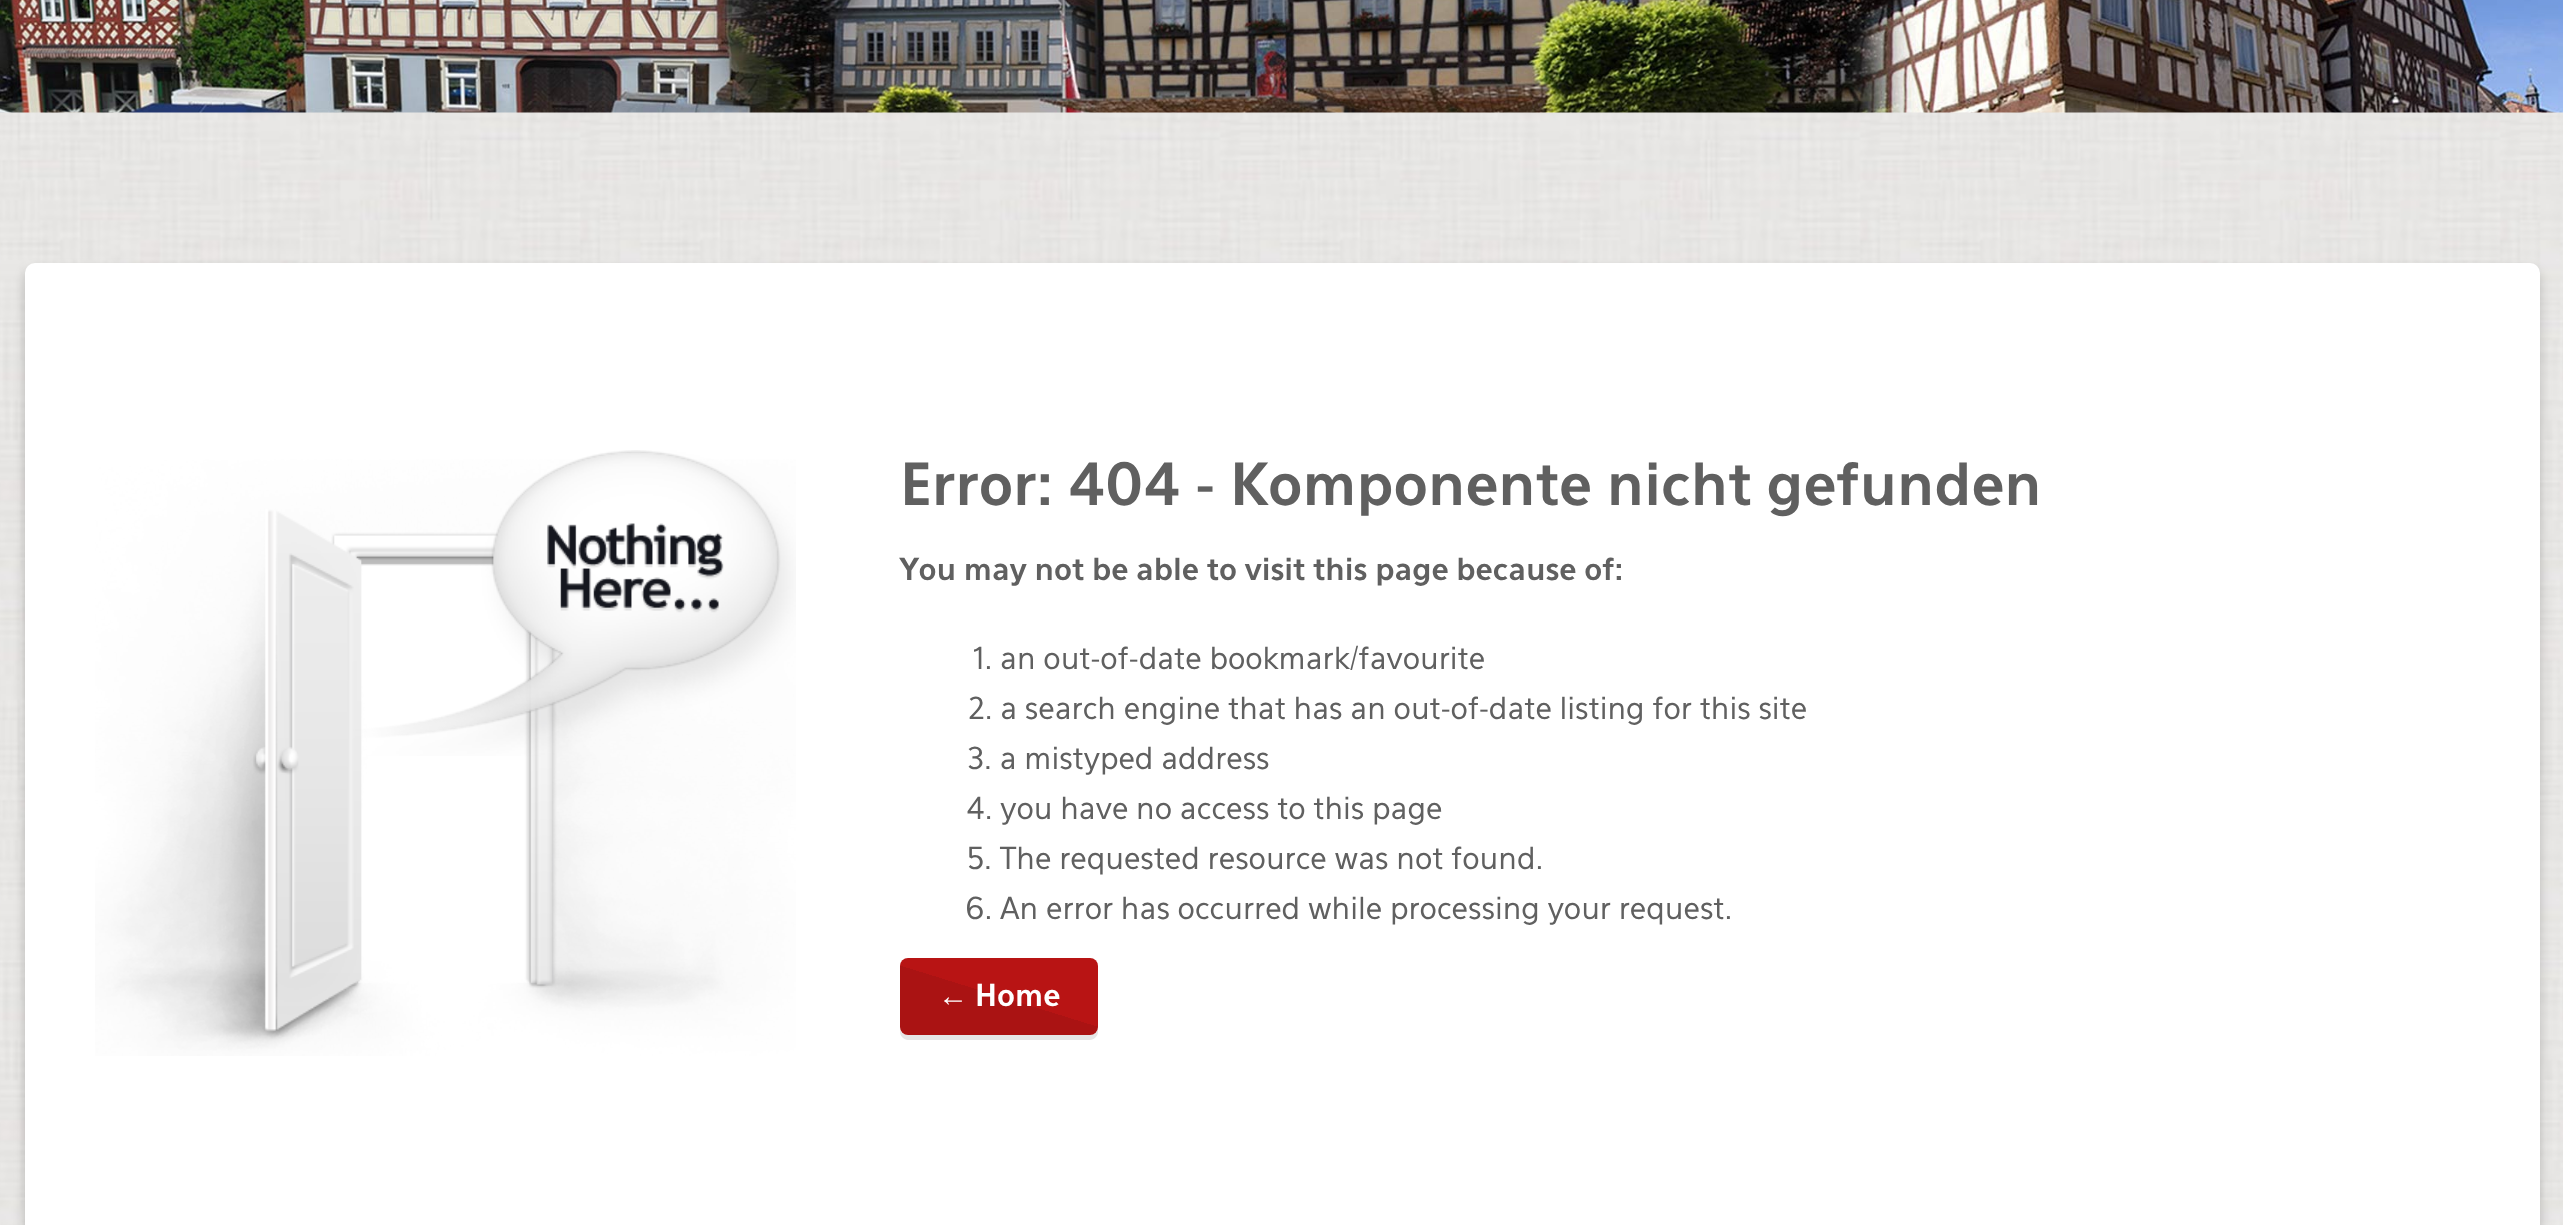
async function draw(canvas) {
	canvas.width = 2563;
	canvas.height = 1225;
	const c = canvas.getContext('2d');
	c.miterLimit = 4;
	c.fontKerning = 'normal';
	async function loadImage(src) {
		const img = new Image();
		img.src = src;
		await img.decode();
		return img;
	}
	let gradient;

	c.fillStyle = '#fff';
	c.fillRect(0, 0, 2563, 1225);
	c.drawImage(await loadImage('img1.png'), 0, 112, 2563, 1113);
	c.drawImage(await loadImage('img2.png'), 0, 0, 2563, 113);
	c.fillStyle = '#00000033';
	c.filter = 'blur(6px)';
	c.beginPath();
	c.roundRect(25, 270, 2515, 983, 10);
	c.fill();
	c.filter = 'none';
	c.fillStyle = '#fff';
	c.beginPath();
	c.roundRect(25, 263, 2515, 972, 10);
	c.fill();
	c.drawImage(await loadImage('img3.png'), 95, 450, 701, 606);
	c.font = 'bold 57.5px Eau';
	c.fillStyle = '#606060';
	c.fillText('Error: 404 - Komponente nicht gefunden', 900, 505);
	c.font = 'bold 30px Eau';
	c.fillText('You may not be able to visit this page because of:', 900, 580);
	c.font = '30px Eau';
	for (const [text, x, y] of [
		['1. an out-of-date bookmark/favourite', 973, 669],
		['2. a search engine that has an out-of-date listing for this site', 968, 719],
		['3. a mistyped address', 967, 769],
		['4. you have no access to this page', 966, 819],
		['5. The requested resource was not found.', 967, 869],
		['6. An error has occurred while processing your request.', 965, 919],
	]) {
		c.fillText(text, x, y);
	}
	c.fillStyle = '#e6e6e6';
	c.beginPath();
	c.moveTo(900, 1028);
	c.lineTo(900, 1032);
	c.bezierCurveTo(900, 1036, 904, 1040, 908, 1040);
	c.lineTo(1090, 1040);
	c.bezierCurveTo(1094, 1040, 1098, 1036, 1098, 1032);
	c.lineTo(1098, 971);
	c.lineTo(1098, 968);
	c.lineTo(1098, 1028);
	c.bezierCurveTo(1098, 1032, 1094, 1035, 1090, 1035);
	c.lineTo(908, 1035);
	c.bezierCurveTo(903, 1035, 900, 1032, 900, 1028);
	c.closePath();
	c.fill();
	gradient = c.createLinearGradient(979, 1059, 1018, 933);
	gradient.addColorStop(0.5, '#aa1313');
	gradient.addColorStop(0.5, '#b81414');
	c.fillStyle = gradient;
	c.beginPath();
	c.roundRect(900, 958, 198, 77, 8);
	c.fill();
	c.font = '30px Liberation Sans';
	c.fillStyle = '#fff';
	c.fillText('←', 938, 1006);
	c.font = 'bold 30px Eau';
	c.fillText('Home', 975, 1006);
}

draw(document.querySelector('canvas'));
